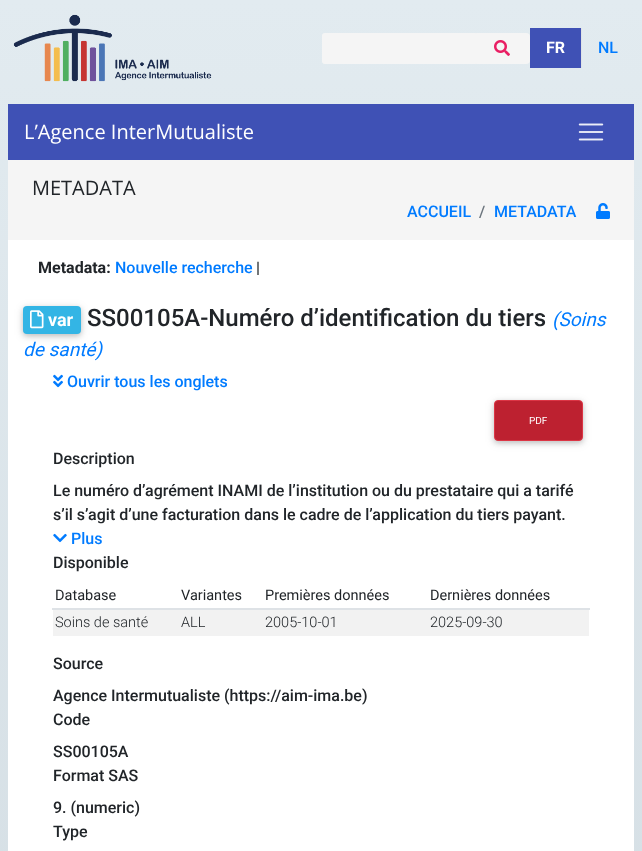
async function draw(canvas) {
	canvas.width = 642;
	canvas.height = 851;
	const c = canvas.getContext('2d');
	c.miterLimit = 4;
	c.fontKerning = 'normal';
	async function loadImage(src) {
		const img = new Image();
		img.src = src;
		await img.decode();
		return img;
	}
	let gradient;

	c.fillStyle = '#fff';
	c.fillRect(0, 0, 642, 851);
	gradient = c.createLinearGradient(321, 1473, 321, 0);
	gradient.addColorStop(0, '#cfd9df');
	gradient.addColorStop(1, '#e2ebf0');
	c.fillStyle = gradient;
	c.fillRect(0, 0, 642, 851);
	c.drawImage(await loadImage('img1.png'), 13, 14, 199, 68);
	c.fillStyle = '#f5f5f5';
	c.beginPath();
	c.roundRect(322, 33, 208, 31, 4);
	c.fill();
	c.beginPath();
	c.roundRect(322, 33, 156, 31, 3);
	c.fill();
	c.drawImage(await loadImage('img2.png'), 494, 40, 16, 16);
	c.fillStyle = '#3f51b5';
	c.fillRect(530, 28, 51, 40);
	c.font = 'bold 16px Roboto';
	c.fillStyle = '#fff';
	c.fillText('FR', 546, 53);
	c.fillStyle = '#dee2e6';
	c.fillRect(581, 28, 1, 40);
	c.font = '500 16px Roboto';
	c.fillStyle = '#007bff';
	c.fillText('NL', 598, 53);
	c.fillStyle = '#3f51b5';
	c.fillRect(8, 104, 626, 56);
	c.font = '20px Open Sans';
	c.fillStyle = '#fff';
	c.fillText('L’Agence InterMutualiste', 24, 139);
	c.drawImage(await loadImage('img3.png'), 578, 123, 26, 18);
	c.fillStyle = '#f5f5f5';
	c.fillRect(8, 160, 626, 80);
	c.fillStyle = '#212529';
	c.fillText('METADATA', 32, 195);
	c.font = '500 16px Roboto';
	c.fillStyle = '#007bff';
	c.fillText('ACCUEIL', 407, 217);
	c.fillStyle = '#6c757d';
	c.fillText('/', 479, 217);
	c.fillStyle = '#007bff';
	c.fillText('METADATA', 494, 217);
	c.drawImage(await loadImage('img4.png'), 596, 203, 14, 16);
	c.fillStyle = '#fff';
	c.fillRect(8, 240, 626, 611);
	c.font = 'bold 16px Roboto';
	c.fillStyle = '#212529';
	c.fillText('Metadata:', 38, 273);
	c.font = '500 16px Roboto';
	c.fillStyle = '#007bff';
	c.fillText('Nouvelle recherche', 115, 273);
	c.fillStyle = '#212529';
	c.fillText('|', 256, 273);
	c.fillStyle = '#0000001f';
	c.filter = 'blur(5px)';
	c.beginPath();
	c.roundRect(23, 308, 58, 28, 4);
	c.fill();
	c.filter = 'none';
	c.fillStyle = '#00000029';
	c.filter = 'blur(2.5px)';
	c.beginPath();
	c.roundRect(23, 308, 58, 28, 4);
	c.fill();
	c.filter = 'none';
	c.fillStyle = '#33b5e5';
	c.beginPath();
	c.roundRect(23, 306, 58, 28, 4);
	c.fill();
	c.drawImage(await loadImage('img5.png'), 30, 310, 14, 19);
	c.font = 'bold 18px Roboto';
	c.fillStyle = '#fff';
	c.fillText('var', 48, 326);
	c.font = '500 24px Roboto';
	c.fillStyle = '#212529';
	c.fillText('SS00105A-Numéro d’identification du tiers', 87, 326);
	c.font = 'italic 19px Roboto';
	c.fillStyle = '#007bff';
	c.fillText('(Soins', 552, 326);
	c.fillText('de santé)', 23, 356);
	c.drawImage(await loadImage('img6.png'), 53, 374, 10, 14);
	c.font = '500 16px Roboto';
	c.fillText('Ouvrir tous les onglets', 67, 387);
	c.fillStyle = '#0000001f';
	c.filter = 'blur(5px)';
	c.beginPath();
	c.roundRect(494, 402, 89, 41, 4);
	c.fill();
	c.filter = 'none';
	c.fillStyle = '#00000029';
	c.filter = 'blur(2.5px)';
	c.beginPath();
	c.roundRect(494, 402, 89, 41, 4);
	c.fill();
	c.filter = 'none';
	c.fillStyle = '#bd2130';
	c.beginPath();
	c.roundRect(494.5, 400.5, 88, 40, 3.5);
	c.fill();
	c.strokeStyle = '#dc3545';
	c.stroke();
	c.font = '10px Roboto';
	c.fillStyle = '#fff';
	c.fillText('PDF', 529, 424);
	c.font = '500 16px Roboto';
	c.fillStyle = '#212529';
	for (const [text, x, y] of [
		['Description', 53, 464],
		['Le numéro d’agrément INAMI de l’institution ou du prestataire qui a tarifé', 53, 496],
		['s’il s’agit d’une facturation dans le cadre de l’application du tiers payant.', 53, 520],
	]) {
		c.fillText(text, x, y);
	}
	c.drawImage(await loadImage('img7.png'), 53, 533, 14, 10);
	c.fillStyle = '#007bff';
	c.fillText('Plus', 71, 544);
	c.fillStyle = '#212529';
	c.fillText('Disponible', 53, 568);
	c.font = '14.5px Roboto';
	for (const [text, x, y] of [
		['Database', 55, 600],
		['Variantes', 181, 600],
		['Premières données', 265, 600],
	]) {
		c.fillText(text, x, y);
	}
	c.fillStyle = '#dee2e6';
	c.fillRect(52, 608, 538, 2);
	c.fillStyle = '#212529';
	c.fillText('Dernières données', 430, 600);
	c.fillStyle = '#f2f2f2';
	c.fillRect(53, 610, 536, 26);
	c.font = '300 14.5px Roboto';
	c.fillStyle = '#212529';
	for (const [text, x, y] of [
		['Soins de santé', 55, 627],
		['ALL', 181, 627],
		['2005-10-01', 265, 627],
		['2025-09-30', 430, 627],
	]) {
		c.fillText(text, x, y);
	}
	c.font = '500 16px Roboto';
	for (const [text, x, y] of [
		['Source', 53, 669],
		['Agence Intermutualiste (https://aim-ima.be)', 53, 701],
		['Code', 53, 725],
		['SS00105A', 53, 757],
		['Format SAS', 53, 781],
		['9. (numeric)', 53, 813],
		['Type', 53, 837],
	]) {
		c.fillText(text, x, y);
	}
}

draw(document.querySelector('canvas'));
